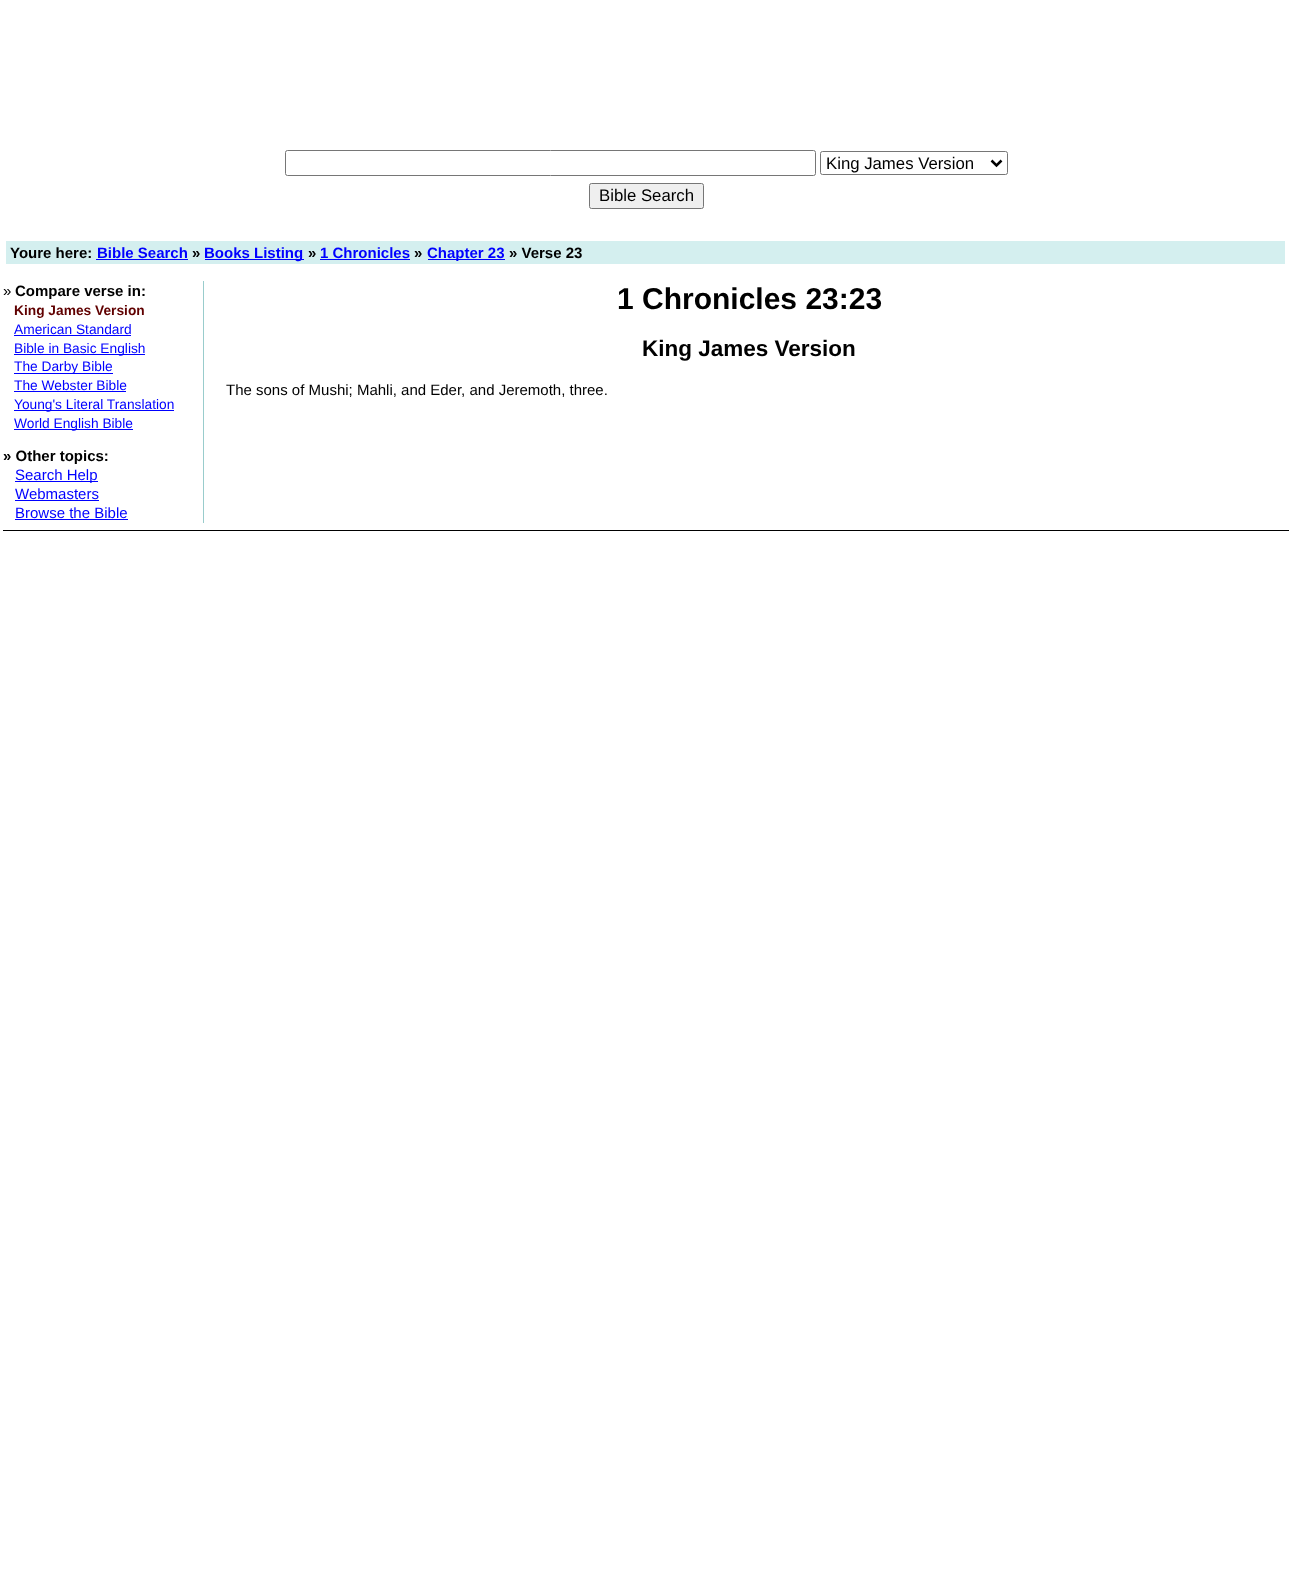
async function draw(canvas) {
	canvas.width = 1292;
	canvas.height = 1584;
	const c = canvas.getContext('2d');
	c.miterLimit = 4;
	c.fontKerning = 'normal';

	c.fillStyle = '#fff';
	c.fillRect(0, 0, 1292, 1584);
	c.beginPath();
	c.roundRect(285.5, 150.5, 530, 25, 2);
	c.strokeStyle = '#767676';
	c.stroke();
	c.beginPath();
	c.roundRect(820.5, 151.5, 187, 23, 2);
	c.stroke();
	c.beginPath();
	c.moveTo(991.5, 160.5);
	c.lineTo(996.5, 165.5);
	c.lineTo(1001.5, 160.5);
	c.strokeStyle = '#000';
	c.lineWidth = 2.5;
	c.stroke();
	c.font = '16.75px Liberation Sans';
	c.fillStyle = '#000';
	c.fillText('King James Version', 826, 169);
	c.fillStyle = '#efefef';
	c.beginPath();
	c.roundRect(589.5, 183.5, 114, 25, 2);
	c.fill();
	c.strokeStyle = '#767676';
	c.lineWidth = 1;
	c.stroke();
	c.fillStyle = '#000';
	c.fillText('Bible Search', 599, 201);
	c.fillStyle = '#d4efef';
	c.fillRect(6, 241, 1279, 23);
	c.font = 'bold 15px Liberation Sans';
	c.fillStyle = '#000';
	c.fillText('Youre here:', 10, 258);
	c.fillStyle = '#00f';
	c.fillText('Bible Search', 97, 258);
	c.fillRect(96, 259, 92, 1);
	c.fillStyle = '#000';
	c.fillText('»', 192, 258);
	c.fillStyle = '#00f';
	c.fillRect(205, 259, 99, 1);
	c.fillText('Books Listing', 204, 258);
	c.fillStyle = '#000';
	c.fillText('»', 308, 258);
	c.fillStyle = '#00f';
	c.fillText('1 Chronicles', 320, 258);
	c.fillRect(320, 259, 90, 1);
	c.fillStyle = '#000';
	c.fillText('»', 414, 258);
	c.fillStyle = '#00f';
	c.fillRect(428, 259, 77, 1);
	c.fillText('Chapter 23', 427, 258);
	c.fillStyle = '#000';
	c.fillText('» Verse 23', 509, 258);
	c.fillStyle = '#9cc';
	c.fillRect(203, 281, 1, 242);
	c.font = '15px Liberation Sans';
	c.fillStyle = '#000';
	c.fillText('»', 3, 296);
	c.font = 'bold 15px Liberation Sans';
	c.fillText('Compare verse in:', 15, 296);
	c.font = 'bold 13.75px Liberation Sans';
	c.fillStyle = '#600000';
	c.fillText('King James Version', 14, 315);
	c.font = '13.75px Liberation Sans';
	c.fillStyle = '#00f';
	c.fillText('American Standard', 14, 334);
	c.fillRect(14, 335, 117, 1);
	c.fillRect(14, 354, 131, 1);
	c.fillText('Bible in Basic English', 14, 353);
	c.fillRect(14, 373, 99, 1);
	c.fillText('The Darby Bible', 14, 371);
	c.fillText('The Webster Bible', 14, 390);
	c.fillRect(14, 391, 112, 1);
	c.fillRect(14, 410, 160, 1);
	c.fillText('Young\'s Literal Translation', 14, 409);
	c.fillRect(14, 429, 119, 1);
	c.fillText('World English Bible', 14, 428);
	c.font = 'bold 15px Liberation Sans';
	c.fillStyle = '#000';
	c.fillText('» Other topics:', 3, 461);
	c.fillStyle = '#00f';
	c.fillRect(15, 481, 83, 1);
	c.font = '15px Liberation Sans';
	c.fillText('Search Help', 15, 480);
	c.fillText('Webmasters', 15, 499);
	c.fillRect(15, 500, 84, 1);
	c.fillText('Browse the Bible', 15, 518);
	c.fillRect(15, 519, 113, 1);
	c.font = 'bold 30px Liberation Sans';
	c.fillStyle = '#000';
	c.fillText('1 Chronicles 23:23', 617, 309);
	c.font = 'bold 22.5px Liberation Sans';
	c.fillText('King James Version', 642, 356);
	c.font = '15px Liberation Sans';
	c.fillText('The sons of Mushi; Mahli, and Eder, and Jeremoth, three.', 226, 395);
	c.fillRect(3, 530, 1286, 1);
}

draw(document.querySelector('canvas'));
